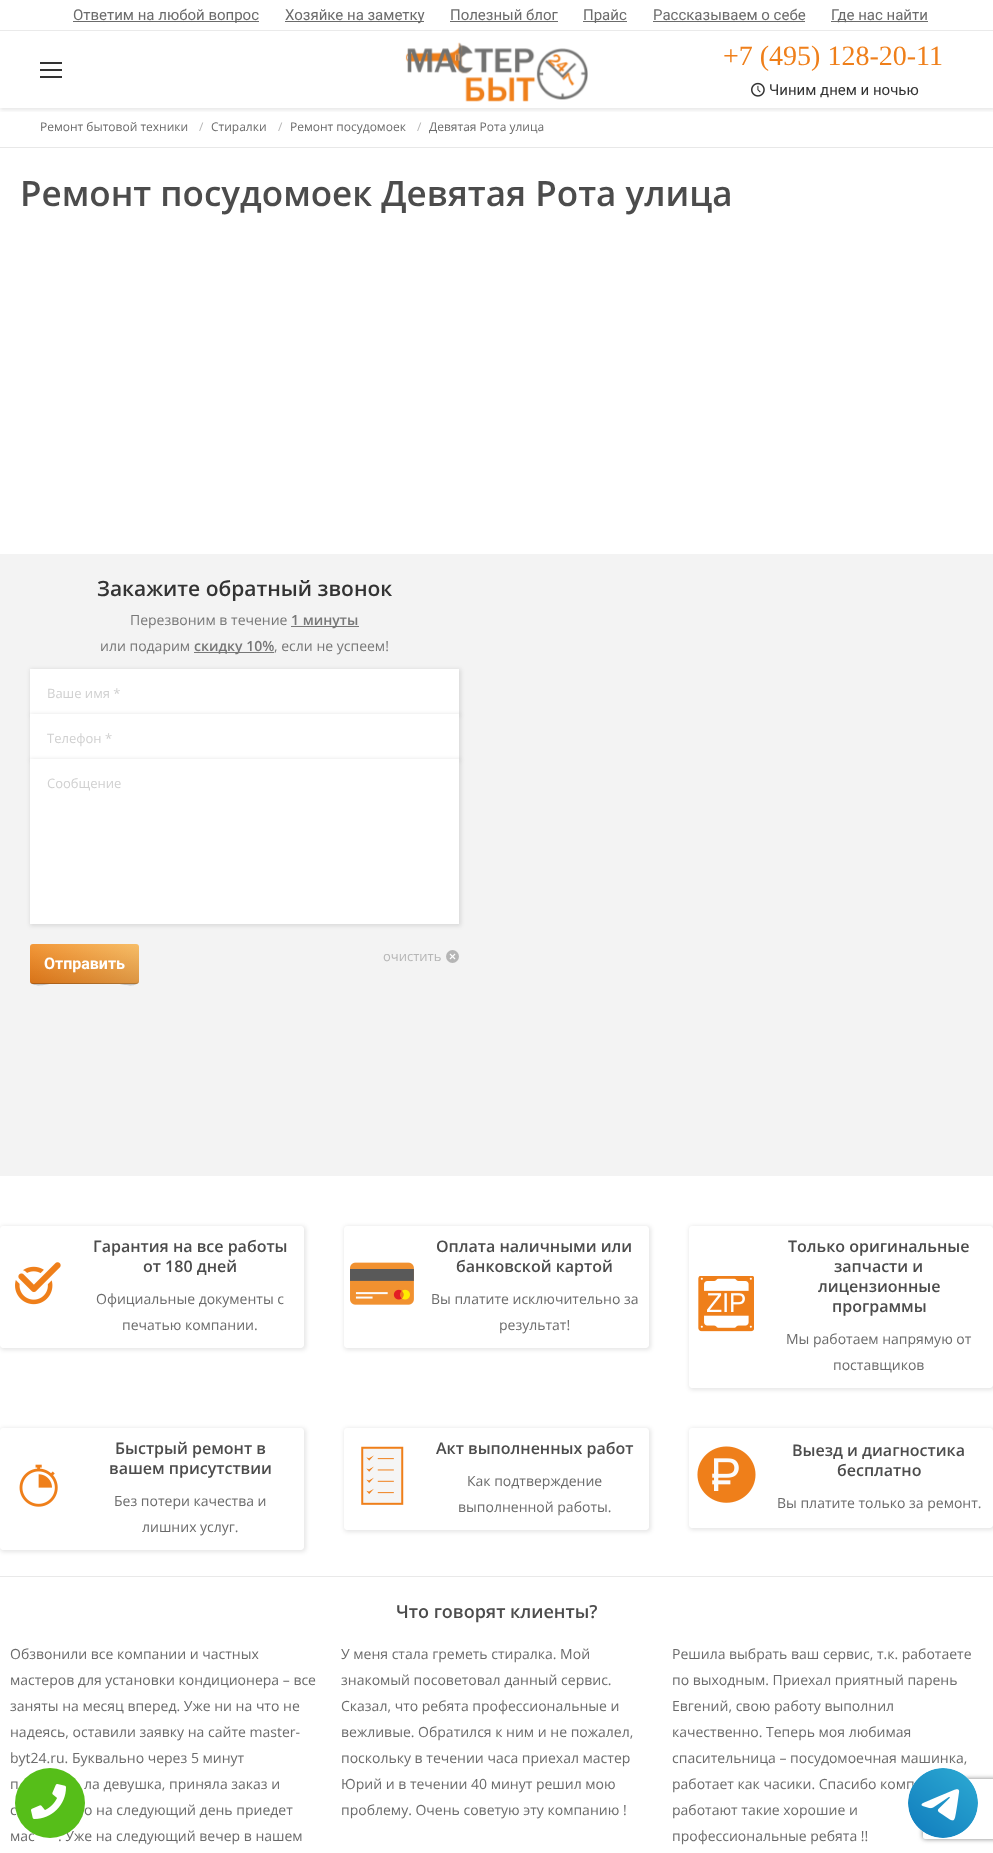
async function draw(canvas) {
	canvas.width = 993;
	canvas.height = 1853;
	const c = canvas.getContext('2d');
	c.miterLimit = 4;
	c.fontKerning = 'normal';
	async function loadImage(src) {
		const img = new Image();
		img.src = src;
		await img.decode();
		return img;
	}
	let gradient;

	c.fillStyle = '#fff';
	c.fillRect(0, 0, 993, 1853);
	c.save();
	c.beginPath();
	c.rect(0, 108, 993, 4);
	c.clip();
	c.fillStyle = '#0000001a';
	c.filter = 'blur(2px)';
	c.beginPath();
	c.rect(0, 0, 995, 110);
	c.fill();
	c.filter = 'none';
	c.restore();
	c.fillStyle = '#6b6b6b';
	c.fillRect(73, 21, 186, 1);
	c.font = '15px Roboto';
	c.fillText('Ответим на любой вопрос', 73, 20);
	c.fillRect(285, 21, 139, 1);
	c.fillText('Хозяйке на заметку', 285, 20);
	c.fillText('Полезный блог', 450, 20);
	c.fillRect(450, 21, 108, 1);
	c.fillRect(583, 21, 44, 1);
	c.fillText('Прайс', 583, 20);
	c.fillText('Рассказываем о себе', 653, 20);
	c.fillRect(653, 21, 152, 1);
	c.fillRect(831, 21, 97, 1);
	c.fillText('Где нас найти', 831, 20);
	for (const [x, y, w, h, color] of [
		[0, 30, 993, 1, '#eaeaea'],
		[40, 69, 22, 2, '#333'],
		[40, 62, 22, 2, '#333'],
		[40, 76, 22, 2, '#333'],
	]) {
		c.fillStyle = color;
		c.fillRect(x, y, w, h);
	}
	c.drawImage(await loadImage('img1.png'), 405, 42, 183, 60);
	c.font = '28px Liberation Serif';
	c.fillStyle = '#ef7f1a';
	c.fillText('+7 (495) 128-20-11', 723, 65);
	c.drawImage(await loadImage('img2.png'), 751, 82, 14, 15);
	c.font = '15px Roboto';
	c.fillStyle = '#333';
	c.fillText('Чиним днем и ночью', 769, 95);
	c.fillStyle = '#e8e8e8';
	c.fillRect(0, 147, 993, 1);
	c.font = '12px Open Sans';
	c.fillStyle = '#6b6b6b';
	c.fillText('Ремонт бытовой техники', 40, 131);
	c.fillStyle = '#b5b5b5';
	c.fillText('/', 199, 131);
	c.fillStyle = '#6b6b6b';
	c.fillText('Стиралки', 211, 131);
	c.fillStyle = '#b5b5b5';
	c.fillText('/', 278, 131);
	c.fillStyle = '#6b6b6b';
	c.fillText('Ремонт посудомоек', 290, 131);
	c.fillStyle = '#b5b5b5';
	c.fillText('/', 417, 131);
	c.fillStyle = '#6b6b6b';
	c.fillText('Девятая Рота улица', 429, 131);
	c.font = '600 35px Open Sans';
	c.fillStyle = '#4c4c4c';
	c.fillText('Ремонт посудомоек Девятая Рота улица', 20, 206);
	c.fillStyle = '#f3f3f3';
	c.fillRect(0, 554, 993, 622);
	c.font = '600 21px Open Sans';
	c.fillStyle = '#333';
	c.fillText('Закажите обратный звонок', 97, 596);
	c.font = '14px Open Sans';
	c.fillStyle = '#777';
	c.fillText('Перезвоним в течение', 130, 625);
	c.fillRect(291, 626, 68, 1);
	c.font = '600 14px Open Sans';
	c.fillText('1 минуты', 291, 625);
	c.font = '14px Open Sans';
	c.fillText('или подарим', 100, 651);
	c.fillRect(194, 652, 80, 1);
	c.font = '600 14px Open Sans';
	c.fillText('скидку 10%', 194, 651);
	c.font = '14px Open Sans';
	c.fillText(', если не успеем!', 274, 651);
	c.fillStyle = '#0000001a';
	c.filter = 'blur(2px)';
	c.beginPath();
	c.rect(30, 669, 431, 47);
	c.fill();
	c.filter = 'none';
	c.fillStyle = '#fff';
	c.fillRect(30, 669, 429, 45);
	c.font = '13px Open Sans';
	c.fillStyle = '#d0d0d0';
	c.fillText('Ваше имя *', 47, 698);
	c.fillStyle = '#0000001a';
	c.filter = 'blur(2px)';
	c.beginPath();
	c.rect(30, 714, 431, 47);
	c.fill();
	c.filter = 'none';
	c.fillStyle = '#fff';
	c.fillRect(30, 714, 429, 45);
	c.fillStyle = '#d0d0d0';
	c.fillText('Телефон *', 47, 743);
	c.fillStyle = '#0000001a';
	c.filter = 'blur(2px)';
	c.beginPath();
	c.rect(30, 759, 431, 167);
	c.fill();
	c.filter = 'none';
	c.fillStyle = '#fff';
	c.fillRect(30, 759, 429, 165);
	c.fillStyle = '#d0d0d0';
	c.fillText('Сообщение', 47, 788);
	gradient = c.createLinearGradient(62, 1003, 107, 925);
	gradient.addColorStop(0, '#ef7f1a');
	gradient.addColorStop(1, '#f7be68');
	c.fillStyle = gradient;
	c.beginPath();
	c.roundRect(30, 944, 109, 40, 3);
	c.fill();
	c.fillStyle = '#00000033';
	c.beginPath();
	c.moveTo(30, 980);
	c.bezierCurveTo(30, 989, 48, 984, 50, 984);
	c.lineTo(119, 984);
	c.bezierCurveTo(121, 984, 139, 989, 139, 980);
	c.bezierCurveTo(139, 982, 138, 983, 136, 983);
	c.lineTo(33, 983);
	c.bezierCurveTo(31, 983, 30, 982, 30, 980);
	c.closePath();
	c.fill();
	gradient = c.createLinearGradient(85, 944, 85, 984);
	gradient.addColorStop(0, '#00000000');
	gradient.addColorStop(1, '#0000001a');
	c.fillStyle = gradient;
	c.beginPath();
	c.roundRect(30, 944, 109, 40, 3);
	c.fill();
	c.font = 'bold 16px Roboto';
	c.fillStyle = '#fff';
	c.fillText('Отправить', 44, 969);
	c.font = '13px Open Sans';
	c.fillStyle = '#b5b5b5';
	c.fillText('очистить', 383, 961);
	c.beginPath();
	c.arc(452.5, 956.5, 6.5, 0, 2 * Math.PI);
	c.fill();
	c.drawImage(await loadImage('img3.png'), 449, 953, 7, 7);
	c.save();
	c.beginPath();
	c.moveTo(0, 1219);
	c.lineTo(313, 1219);
	c.lineTo(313, 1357);
	c.lineTo(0, 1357);
	c.closePath();
	c.moveTo(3, 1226);
	c.lineTo(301, 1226);
	c.bezierCurveTo(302.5, 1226, 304, 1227.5, 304, 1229);
	c.lineTo(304, 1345);
	c.bezierCurveTo(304, 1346.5, 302.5, 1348, 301, 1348);
	c.lineTo(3, 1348);
	c.bezierCurveTo(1.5, 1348, 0, 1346.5, 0, 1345);
	c.lineTo(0, 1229);
	c.bezierCurveTo(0, 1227.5, 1.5, 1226, 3, 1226);
	c.closePath();
	c.clip('evenodd');
	c.fillStyle = '#0000001a';
	c.filter = 'blur(2px)';
	c.beginPath();
	c.roundRect(0, 1226, 306, 124, 4);
	c.fill();
	c.filter = 'none';
	c.restore();
	c.drawImage(await loadImage('img4.png'), 15, 1262, 46, 43);
	c.font = '600 16px Open Sans';
	c.fillStyle = '#4c4c4c';
	c.fillText('Гарантия на все работы', 93, 1252);
	c.fillText('от 180 дней', 143, 1272);
	c.font = '14px Open Sans';
	c.fillStyle = '#6b6b6b';
	c.fillText('Официальные документы с', 96, 1304);
	c.fillText('печатью компании.', 122, 1330);
	c.save();
	c.beginPath();
	c.moveTo(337, 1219);
	c.lineTo(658, 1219);
	c.lineTo(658, 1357);
	c.lineTo(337, 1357);
	c.closePath();
	c.moveTo(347, 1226);
	c.lineTo(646, 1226);
	c.bezierCurveTo(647.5, 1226, 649, 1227.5, 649, 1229);
	c.lineTo(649, 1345);
	c.bezierCurveTo(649, 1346.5, 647.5, 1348, 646, 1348);
	c.lineTo(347, 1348);
	c.bezierCurveTo(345.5, 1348, 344, 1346.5, 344, 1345);
	c.lineTo(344, 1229);
	c.bezierCurveTo(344, 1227.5, 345.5, 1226, 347, 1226);
	c.closePath();
	c.clip('evenodd');
	c.fillStyle = '#0000001a';
	c.filter = 'blur(2px)';
	c.beginPath();
	c.roundRect(344, 1226, 307, 124, 4);
	c.fill();
	c.filter = 'none';
	c.restore();
	c.drawImage(await loadImage('img5.png'), 350, 1262, 64, 43);
	c.font = '600 16px Open Sans';
	c.fillStyle = '#4c4c4c';
	c.fillText('Оплата наличными или', 436, 1252);
	c.fillText('банковской картой', 456, 1272);
	c.font = '14px Open Sans';
	c.fillStyle = '#6b6b6b';
	c.fillText('Вы платите исключительно за', 431, 1304);
	c.fillText('результат!', 499, 1330);
	c.save();
	c.beginPath();
	c.moveTo(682, 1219);
	c.lineTo(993, 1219);
	c.lineTo(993, 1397);
	c.lineTo(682, 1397);
	c.closePath();
	c.moveTo(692, 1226);
	c.lineTo(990, 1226);
	c.bezierCurveTo(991.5, 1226, 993, 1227.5, 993, 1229);
	c.lineTo(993, 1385);
	c.bezierCurveTo(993, 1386.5, 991.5, 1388, 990, 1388);
	c.lineTo(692, 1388);
	c.bezierCurveTo(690.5, 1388, 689, 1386.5, 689, 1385);
	c.lineTo(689, 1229);
	c.bezierCurveTo(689, 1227.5, 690.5, 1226, 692, 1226);
	c.closePath();
	c.clip('evenodd');
	c.fillStyle = '#0000001a';
	c.filter = 'blur(2px)';
	c.beginPath();
	c.roundRect(689, 1226, 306, 164, 4);
	c.fill();
	c.filter = 'none';
	c.restore();
	c.drawImage(await loadImage('img6.png'), 698, 1276, 56, 56);
	c.font = '600 16px Open Sans';
	c.fillStyle = '#4c4c4c';
	for (const [text, x, y] of [
		['Только оригинальные', 788, 1252],
		['запчасти и', 834, 1272],
		['лицензионные', 818, 1292],
		['программы', 832, 1312],
	]) {
		c.fillText(text, x, y);
	}
	c.font = '14px Open Sans';
	c.fillStyle = '#6b6b6b';
	c.fillText('Мы работаем напрямую от', 786, 1344);
	c.fillText('поставщиков', 833, 1370);
	c.save();
	c.beginPath();
	c.moveTo(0, 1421);
	c.lineTo(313, 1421);
	c.lineTo(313, 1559);
	c.lineTo(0, 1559);
	c.closePath();
	c.moveTo(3, 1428);
	c.lineTo(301, 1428);
	c.bezierCurveTo(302.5, 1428, 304, 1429.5, 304, 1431);
	c.lineTo(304, 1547);
	c.bezierCurveTo(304, 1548.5, 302.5, 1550, 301, 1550);
	c.lineTo(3, 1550);
	c.bezierCurveTo(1.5, 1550, 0, 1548.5, 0, 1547);
	c.lineTo(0, 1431);
	c.bezierCurveTo(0, 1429.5, 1.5, 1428, 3, 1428);
	c.closePath();
	c.clip('evenodd');
	c.fillStyle = '#0000001a';
	c.filter = 'blur(2px)';
	c.beginPath();
	c.roundRect(0, 1428, 306, 124, 4);
	c.fill();
	c.filter = 'none';
	c.restore();
	c.drawImage(await loadImage('img7.png'), 19, 1464, 39, 43);
	c.font = '600 16px Open Sans';
	c.fillStyle = '#4c4c4c';
	c.fillText('Быстрый ремонт в', 115, 1454);
	c.fillText('вашем присутствии', 109, 1474);
	c.font = '14px Open Sans';
	c.fillStyle = '#6b6b6b';
	c.fillText('Без потери качества и', 114, 1506);
	c.fillText('лишних услуг.', 142, 1532);
	c.save();
	c.beginPath();
	c.moveTo(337, 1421);
	c.lineTo(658, 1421);
	c.lineTo(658, 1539);
	c.lineTo(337, 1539);
	c.closePath();
	c.moveTo(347, 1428);
	c.lineTo(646, 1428);
	c.bezierCurveTo(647.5, 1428, 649, 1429.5, 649, 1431);
	c.lineTo(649, 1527);
	c.bezierCurveTo(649, 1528.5, 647.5, 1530, 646, 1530);
	c.lineTo(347, 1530);
	c.bezierCurveTo(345.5, 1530, 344, 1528.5, 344, 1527);
	c.lineTo(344, 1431);
	c.bezierCurveTo(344, 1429.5, 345.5, 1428, 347, 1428);
	c.closePath();
	c.clip('evenodd');
	c.fillStyle = '#0000001a';
	c.filter = 'blur(2px)';
	c.beginPath();
	c.roundRect(344, 1428, 307, 104, 4);
	c.fill();
	c.filter = 'none';
	c.restore();
	c.drawImage(await loadImage('img8.png'), 361, 1446, 43, 59);
	c.font = '600 16px Open Sans';
	c.fillStyle = '#4c4c4c';
	c.fillText('Акт выполненных работ', 436, 1454);
	c.font = '14px Open Sans';
	c.fillStyle = '#6b6b6b';
	c.fillText('Как подтверждение', 467, 1486);
	c.fillText('выполненной работы.', 458, 1512);
	c.save();
	c.beginPath();
	c.moveTo(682, 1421);
	c.lineTo(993, 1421);
	c.lineTo(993, 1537);
	c.lineTo(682, 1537);
	c.closePath();
	c.moveTo(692, 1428);
	c.lineTo(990, 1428);
	c.bezierCurveTo(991.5, 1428, 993, 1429.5, 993, 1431);
	c.lineTo(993, 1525);
	c.bezierCurveTo(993, 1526.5, 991.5, 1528, 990, 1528);
	c.lineTo(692, 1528);
	c.bezierCurveTo(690.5, 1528, 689, 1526.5, 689, 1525);
	c.lineTo(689, 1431);
	c.bezierCurveTo(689, 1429.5, 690.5, 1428, 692, 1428);
	c.closePath();
	c.clip('evenodd');
	c.fillStyle = '#0000001a';
	c.filter = 'blur(2px)';
	c.beginPath();
	c.roundRect(689, 1428, 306, 102, 4);
	c.fill();
	c.filter = 'none';
	c.restore();
	c.drawImage(await loadImage('img9.png'), 697, 1446, 59, 57);
	c.font = '600 16px Open Sans';
	c.fillStyle = '#4c4c4c';
	c.fillText('Выезд и диагностика', 792, 1456);
	c.fillText('бесплатно', 837, 1476);
	c.font = '14px Open Sans';
	c.fillStyle = '#6b6b6b';
	c.fillText('Вы платите только за ремонт.', 777, 1508);
	c.fillStyle = '#e9e9e9';
	c.fillRect(0, 1576, 993, 1);
	c.font = '600 18px Open Sans';
	c.fillStyle = '#4c4c4c';
	c.fillText('Что говорят клиенты?', 396, 1618);
	c.font = '14px Open Sans';
	c.fillStyle = '#6b6b6b';
	for (const [text, x, y] of [
		['Обзвонили все компании и частных', 10, 1659],
		['мастеров для установки кондиционера – все', 10, 1685],
		['заняты на месяц вперед. Уже ни на что не', 10, 1711],
		['надеясь, оставили заявку на сайте master-', 10, 1737],
		['byt24.ru. Буквально через 5 минут', 10, 1763],
		['п', 10, 1789],
		['ла девушка, приняла заказ и', 84, 1789],
		['с', 10, 1815],
		['о на следующий день приедет', 84, 1815],
		['мас', 10, 1841],
		['. Уже на следующий вечер в нашем', 58, 1841],
		['У меня стала греметь стиралка. Мой', 341, 1659],
		['знакомый посоветовал данный сервис.', 341, 1685],
		['Сказал, что ребята профессиональные и', 341, 1711],
		['вежливые. Обратился к ним и не пожалел,', 341, 1737],
		['поскольку в течении часа приехал мастер', 341, 1763],
		['Юрий и в течении 40 минут решил мою', 341, 1789],
		['проблему. Очень советую эту компанию !', 341, 1815],
		['Решила выбрать ваш сервис, т.к. работаете', 672, 1659],
		['по выходным. Приехал приятный парень', 672, 1685],
		['Евгений, свою работу выполнил', 672, 1711],
		['качественно. Теперь моя любимая', 672, 1737],
		['спасительница – посудомоечная машинка,', 672, 1763],
		['работает как часики. Спасибо комп', 672, 1789],
		['работают такие хорошие и', 672, 1815],
		['профессиональные ребята !!', 672, 1841],
	]) {
		c.fillText(text, x, y);
	}
	c.fillStyle = '#56be19';
	c.beginPath();
	c.arc(50, 1803, 35, 0, 2 * Math.PI);
	c.fill();
	c.drawImage(await loadImage('img10.png'), 31, 1784, 35, 35);
	c.save();
	c.beginPath();
	c.moveTo(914, 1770);
	c.lineTo(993, 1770);
	c.lineTo(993, 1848);
	c.lineTo(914, 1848);
	c.closePath();
	c.moveTo(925, 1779);
	c.lineTo(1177, 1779);
	c.bezierCurveTo(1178, 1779, 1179, 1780, 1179, 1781);
	c.lineTo(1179, 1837);
	c.bezierCurveTo(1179, 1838, 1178, 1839, 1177, 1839);
	c.lineTo(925, 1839);
	c.bezierCurveTo(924, 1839, 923, 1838, 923, 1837);
	c.lineTo(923, 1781);
	c.bezierCurveTo(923, 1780, 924, 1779, 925, 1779);
	c.closePath();
	c.clip('evenodd');
	c.fillStyle = '#808080';
	c.filter = 'blur(2.5px)';
	c.beginPath();
	c.roundRect(923, 1779, 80, 60, 2);
	c.fill();
	c.filter = 'none';
	c.restore();
	c.fillStyle = '#fff';
	c.beginPath();
	c.arc(943, 1803, 35, 0, 2 * Math.PI);
	c.fill();
	c.drawImage(await loadImage('img11.png'), 908, 1768, 70, 70);
}

draw(document.querySelector('canvas'));
